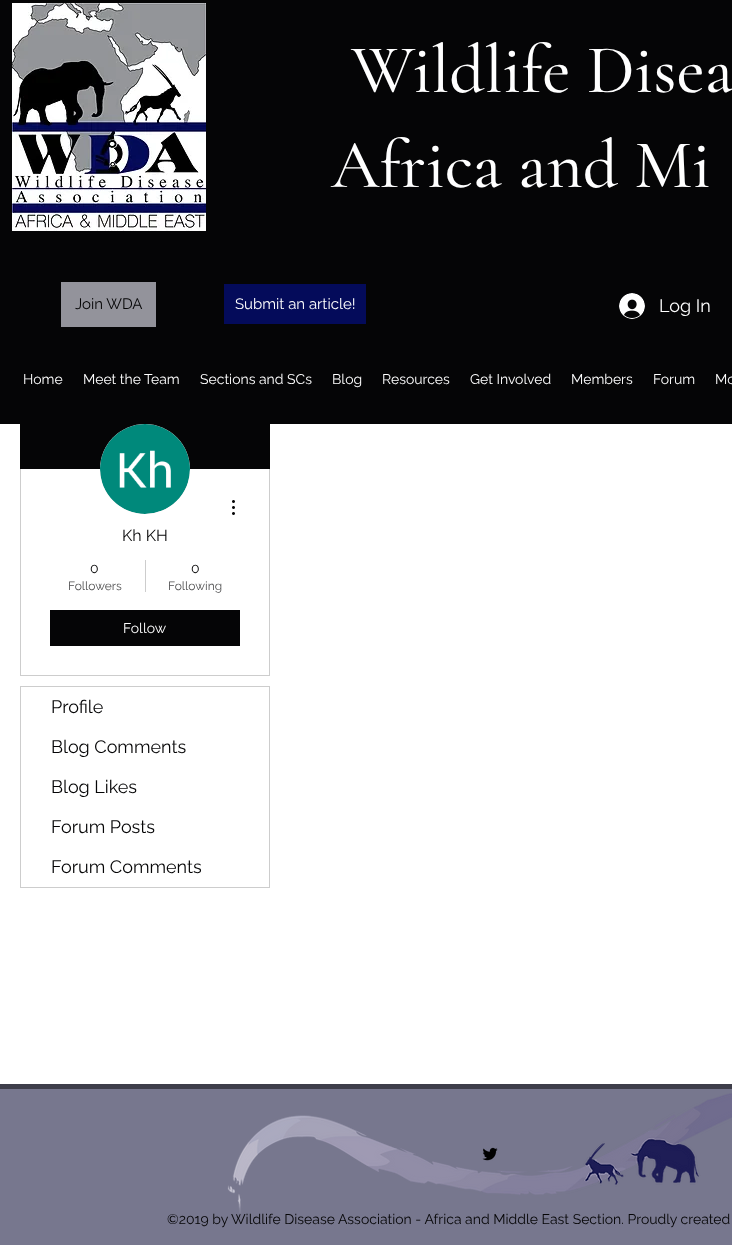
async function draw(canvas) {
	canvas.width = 732;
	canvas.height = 1245;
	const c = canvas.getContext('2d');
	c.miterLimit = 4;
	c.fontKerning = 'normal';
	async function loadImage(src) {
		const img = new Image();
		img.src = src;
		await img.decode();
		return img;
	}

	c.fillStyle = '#fff';
	c.fillRect(0, 0, 732, 1245);
	c.fillStyle = '#050506';
	c.fillRect(20, 424, 250, 45);
	c.strokeStyle = '#05050633';
	c.strokeRect(20.5, 359.5, 249, 316);
	c.fillRect(0, 0, 732, 424);
	c.drawImage(await loadImage('img1.png'), 12, 3, 194, 228);
	c.font = '500 69px Cormorant Garamond';
	c.fillStyle = '#fff';
	c.fillText('Wildlife Disea', 351, 92);
	c.fillText('Africa and Mi', 331, 187);
	c.fillStyle = '#93939b';
	c.fillRect(61, 282, 95, 45);
	c.font = '15px Raleway';
	c.fillStyle = '#050506';
	c.fillText('Join WDA', 75, 309);
	c.fillStyle = '#040b5a';
	c.fillRect(224, 284, 142, 40);
	c.fillStyle = '#fff';
	c.fillText('Submit an article!', 235, 309);
	c.drawImage(await loadImage('img2.png'), 619, 293, 26, 26);
	c.font = '18px Raleway';
	c.fillText('Log In', 659, 312);
	c.font = '14px Raleway';
	for (const [text, x, y] of [
		['Home', 23, 384],
		['Meet the Team', 83, 384],
		['Sections and SCs', 200, 384],
		['Blog', 332, 384],
		['Resources', 382, 384],
		['Get Involved', 470, 384],
		['Members', 571, 384],
		['Forum', 653, 384],
		['Mo', 715, 384],
	]) {
		c.fillText(text, x, y);
	}
	c.fillStyle = '#d8d8d8';
	c.beginPath();
	c.arc(145, 469, 45, 0, 2 * Math.PI);
	c.fill();
	c.drawImage(await loadImage('img3.png'), 100, 424, 90, 90);
	c.drawImage(await loadImage('img4.png'), 232, 500, 3, 15);
	c.font = '16px Raleway';
	c.fillStyle = '#050506';
	c.fillText('Kh KH', 122, 541);
	c.font = '14px Raleway';
	c.fillText('0', 90, 573);
	c.font = '12px Raleway';
	c.fillStyle = '#505051';
	c.fillText('Followers', 68, 590);
	c.fillStyle = '#cdcdcd';
	c.fillRect(145, 560, 1, 32);
	c.font = '14px Raleway';
	c.fillStyle = '#050506';
	c.fillText('0', 191, 573);
	c.font = '12px Raleway';
	c.fillStyle = '#505051';
	c.fillText('Following', 168, 590);
	c.fillStyle = '#050506';
	c.fillRect(50, 610, 190, 36);
	c.font = '14px Raleway';
	c.fillStyle = '#fff';
	c.fillText('Follow', 123, 633);
	c.strokeStyle = '#cdcdcd';
	c.strokeRect(20.5, 686.5, 249, 201);
	c.font = '18px Raleway';
	c.fillStyle = '#050506';
	for (const [text, x, y] of [
		['Profile', 51, 713],
		['Blog Comments', 51, 753],
		['Blog Likes', 51, 793],
		['Forum Posts', 51, 833],
		['Forum Comments', 51, 873],
	]) {
		c.fillText(text, x, y);
	}
	c.fillStyle = '#77778e';
	c.fillRect(0, 1089, 732, 156);
	c.fillStyle = '#3e3e4a';
	c.fillRect(0, 1084, 732, 5);
	c.drawImage(await loadImage('img6.png'), 482, 1147, 16, 14);
	c.drawImage(await loadImage('img5.png'), 227, 1093, 505, 120);
	c.font = '14px Raleway';
	c.fillStyle = '#050506';
	c.fillText('©2019 by Wildlife Disease Association - Africa and Middle East Section. Proudly created', 167, 1224);
}

draw(document.querySelector('canvas'));
